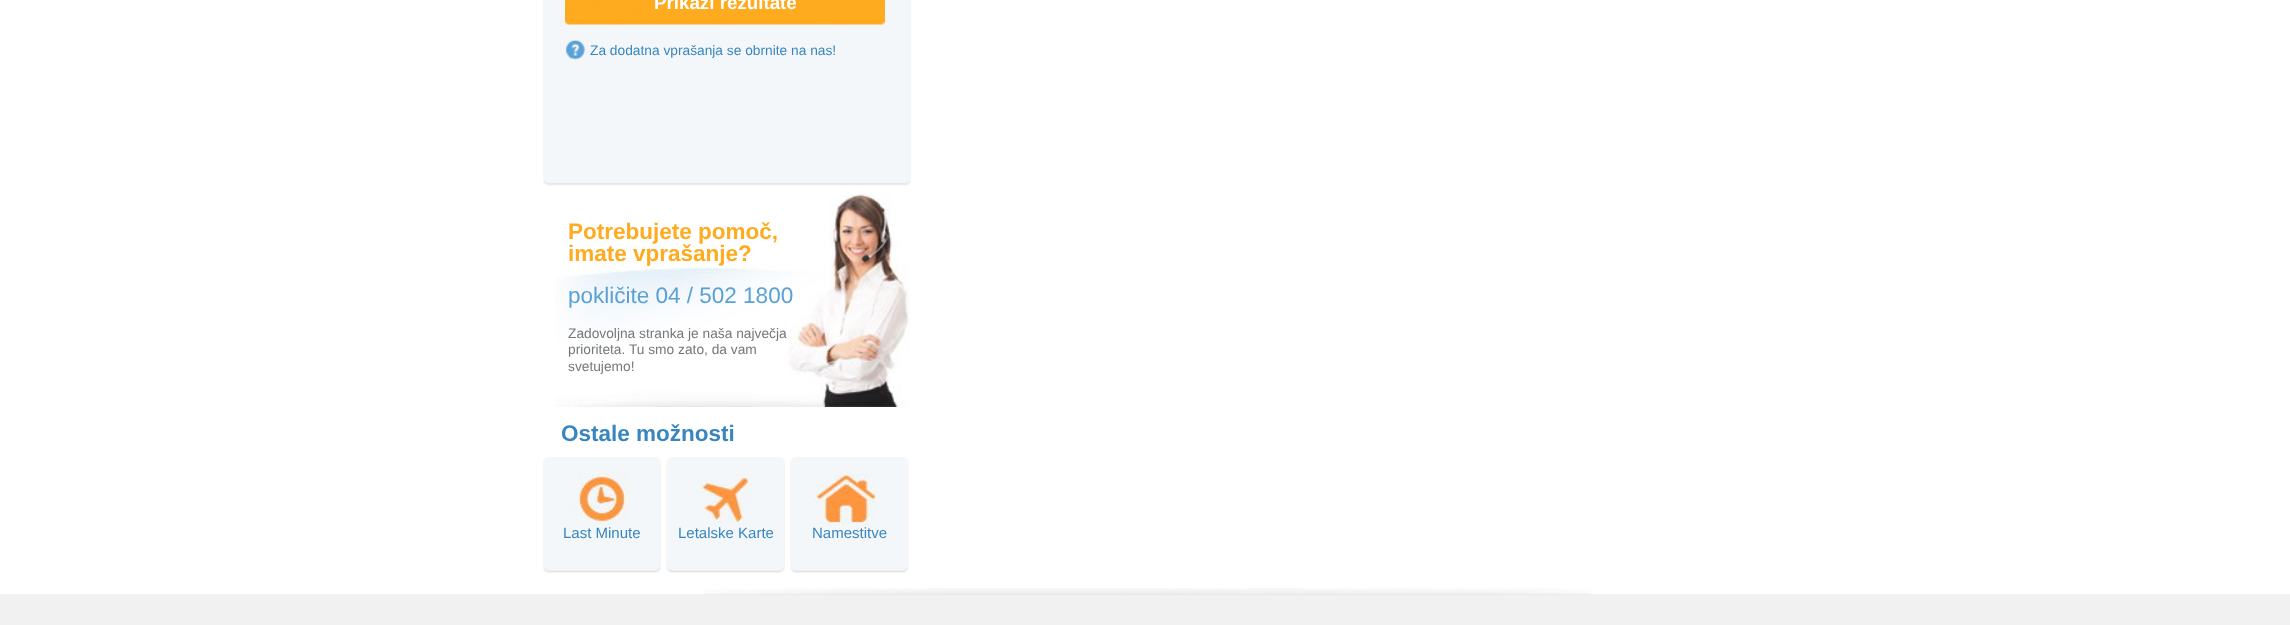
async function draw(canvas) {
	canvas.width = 2290;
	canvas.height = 625;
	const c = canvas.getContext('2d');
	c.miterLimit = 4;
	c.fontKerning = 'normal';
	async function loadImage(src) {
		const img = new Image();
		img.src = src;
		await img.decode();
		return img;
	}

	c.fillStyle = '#fff';
	c.fillRect(0, 0, 2290, 625);
	c.drawImage(await loadImage('img1.png'), 543, 0, 368, 178);
	c.drawImage(await loadImage('img2.png'), 565, 0, 320, 25);
	c.font = 'bold 18.75px Liberation Sans';
	c.fillText('Prikaži rezultate', 654, 9);
	c.drawImage(await loadImage('img3.png'), 565, 39, 21, 21);
	c.font = '13.75px Liberation Sans';
	c.fillStyle = '#3986bf';
	c.fillText('Za dodatna vprašanja se obrnite na nas!', 590, 55);
	c.drawImage(await loadImage('img4.png'), 543, 178, 368, 8);
	c.drawImage(await loadImage('img5.png'), 555, 194, 355, 213);
	c.font = 'bold 22.5px Liberation Sans';
	c.fillStyle = '#ffab1f';
	c.fillText('Potrebujete pomoč,', 568, 239);
	c.fillText('imate vprašanje?', 568, 261);
	c.font = '22.5px Liberation Sans';
	c.fillStyle = '#5aa1d5';
	c.fillText('pokličite 04 / 502 1800', 568, 303);
	c.font = '13.75px Liberation Sans';
	c.fillStyle = '#777';
	for (const [text, x, y] of [
		['Zadovoljna stranka je naša največja', 568, 338],
		['prioriteta. Tu smo zato, da vam', 568, 354],
		['svetujemo!', 568, 371],
	]) {
		c.fillText(text, x, y);
	}
	c.font = 'bold 22.5px Liberation Sans';
	c.fillStyle = '#3986bf';
	c.fillText('Ostale možnosti', 561, 441);
	c.drawImage(await loadImage('img6.png'), 543, 457, 118, 116);
	c.drawImage(await loadImage('img7.png'), 567, 473, 62, 50);
	c.font = '15px Liberation Sans';
	c.fillText('Last Minute', 563, 538);
	c.drawImage(await loadImage('img8.png'), 666, 457, 119, 116);
	c.drawImage(await loadImage('img9.png'), 691, 473, 61, 51);
	c.fillText('Letalske Karte', 678, 538);
	c.drawImage(await loadImage('img10.png'), 790, 457, 119, 116);
	c.drawImage(await loadImage('img11.png'), 815, 473, 62, 51);
	c.fillText('Namestitve', 812, 538);
	c.fillStyle = '#f1f1f1';
	c.fillRect(0, 594, 2290, 31);
	c.drawImage(await loadImage('img12.png'), 704, 588, 887, 7);
}

draw(document.querySelector('canvas'));
